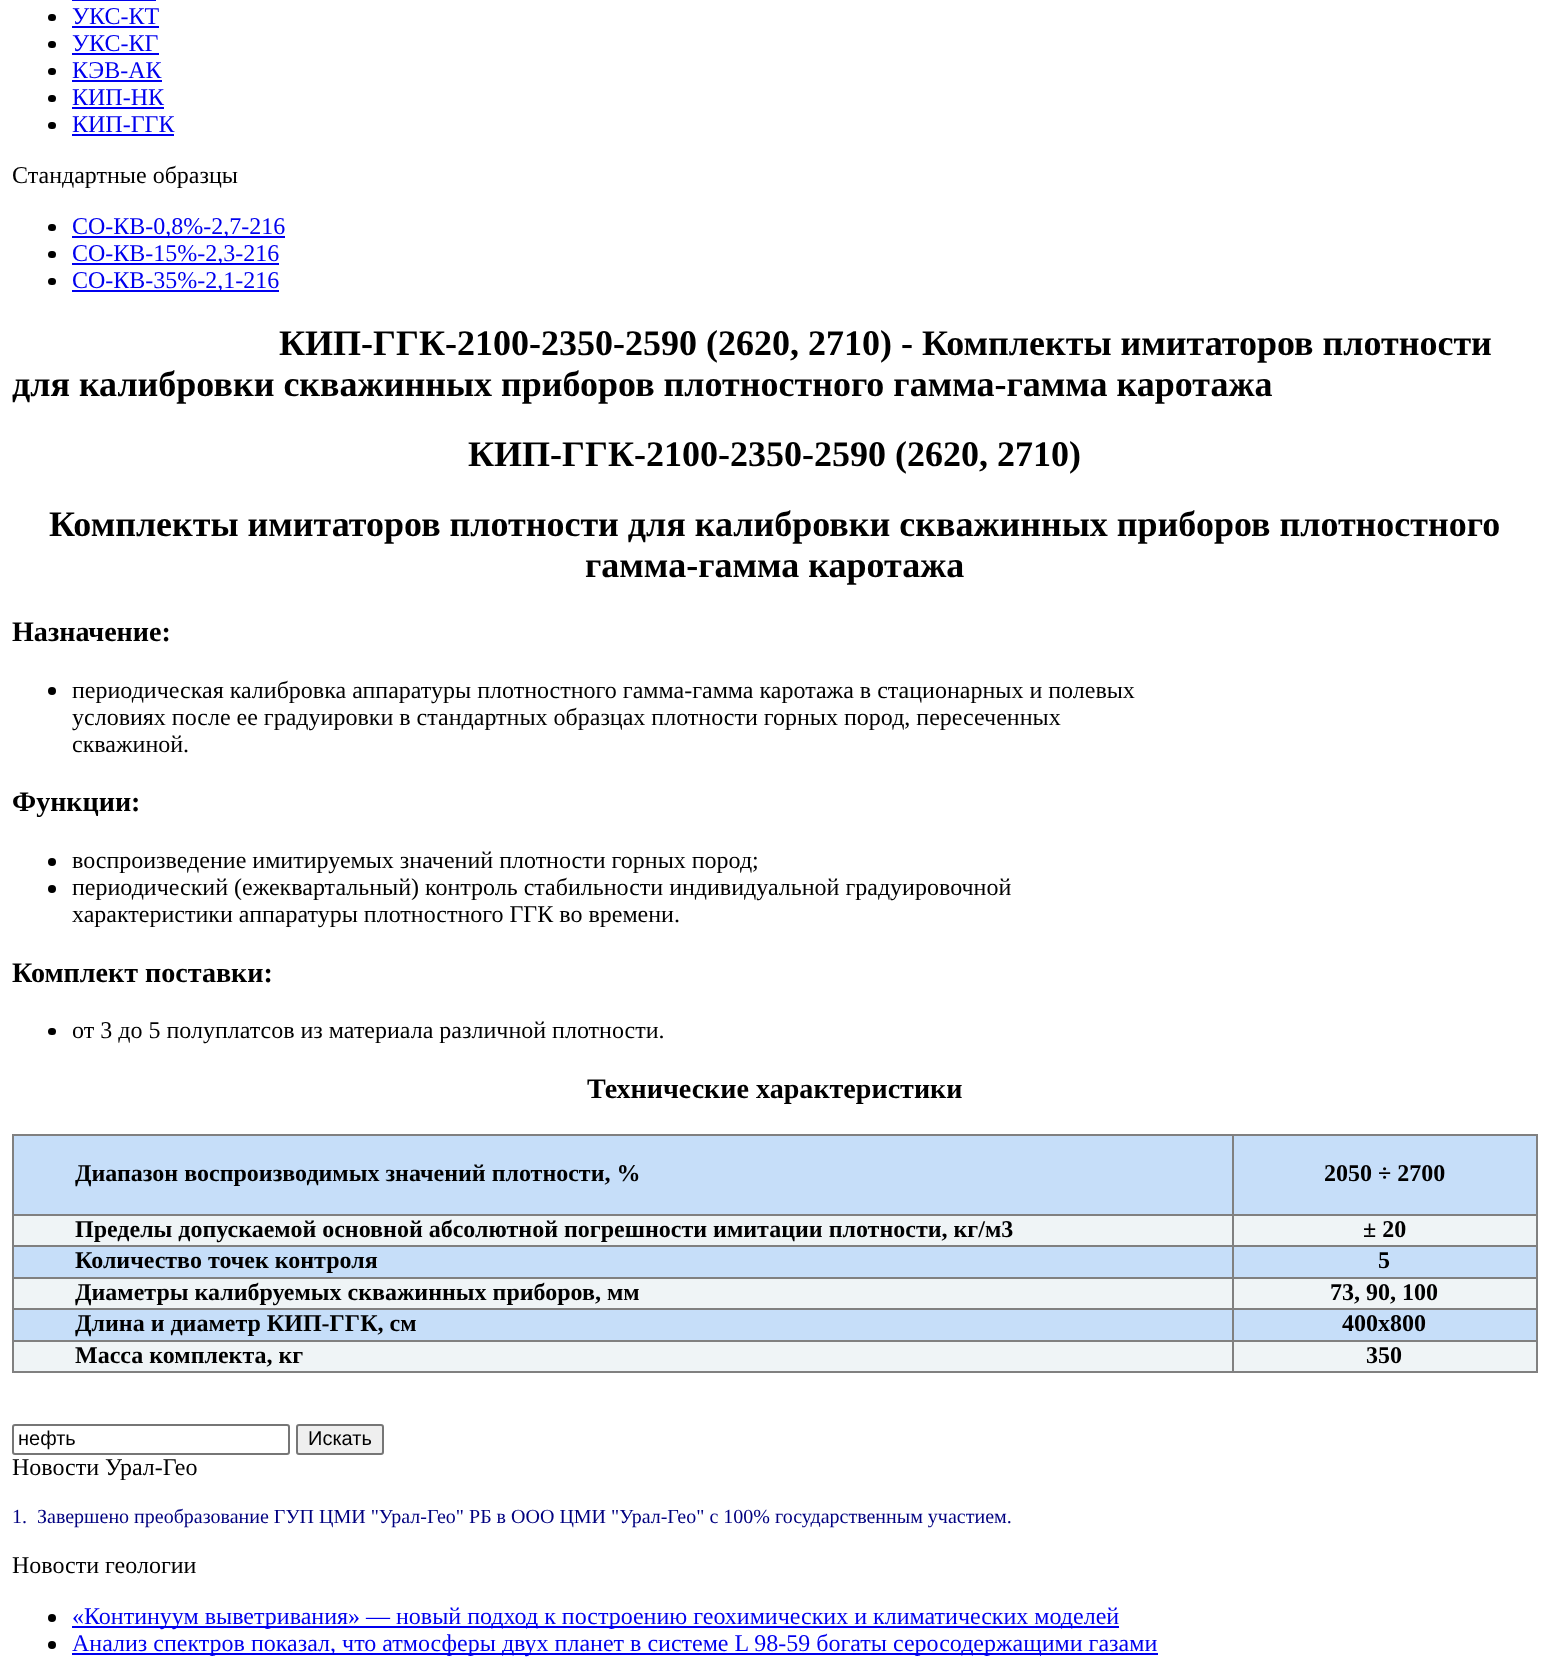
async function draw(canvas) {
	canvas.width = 1549;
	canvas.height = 1664;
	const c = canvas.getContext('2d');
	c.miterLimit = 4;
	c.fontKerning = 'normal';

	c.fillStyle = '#fff';
	c.fillRect(0, 0, 1549, 1664);
	c.fillStyle = '#00e';
	c.fillRect(72, 0, 84, 1);
	c.fillStyle = '#000';
	c.beginPath();
	c.roundRect(48, 14, 8, 7, 3.5);
	c.fill();
	c.font = '24px Liberation Serif';
	c.fillStyle = '#00e';
	c.fillText('УКС-КТ', 72, 24);
	c.fillRect(72, 26, 87, 2);
	c.fillStyle = '#000';
	c.beginPath();
	c.roundRect(48, 41, 8, 7, 3.5);
	c.fill();
	c.fillStyle = '#00e';
	c.fillText('УКС-КГ', 72, 51);
	c.fillRect(72, 53, 87, 2);
	c.fillStyle = '#000';
	c.beginPath();
	c.roundRect(48, 68, 8, 7, 3.5);
	c.fill();
	c.fillStyle = '#00e';
	c.fillText('КЭВ-АК', 72, 78);
	c.fillRect(72, 80, 90, 2);
	c.fillStyle = '#000';
	c.beginPath();
	c.roundRect(48, 95, 8, 7, 3.5);
	c.fill();
	c.fillStyle = '#00e';
	c.fillText('КИП-НК', 72, 105);
	c.fillRect(72, 107, 92, 2);
	c.fillStyle = '#000';
	c.beginPath();
	c.roundRect(48, 122, 8, 7, 3.5);
	c.fill();
	c.fillStyle = '#00e';
	c.fillText('КИП-ГГК', 72, 132);
	c.fillRect(72, 134, 102, 2);
	c.fillStyle = '#000';
	c.fillText('Стандартные образцы', 12, 183);
	c.beginPath();
	c.roundRect(48, 224, 8, 7, 3.5);
	c.fill();
	c.fillStyle = '#00e';
	c.fillRect(72, 236, 213, 2);
	c.fillText('СО-КВ-0,8%-2,7-216', 72, 234);
	c.fillStyle = '#000';
	c.beginPath();
	c.roundRect(48, 251, 8, 7, 3.5);
	c.fill();
	c.fillStyle = '#00e';
	c.fillRect(72, 263, 207, 2);
	c.fillText('СО-КВ-15%-2,3-216', 72, 261);
	c.fillStyle = '#000';
	c.beginPath();
	c.roundRect(48, 278, 8, 7, 3.5);
	c.fill();
	c.fillStyle = '#00e';
	c.fillRect(72, 290, 207, 2);
	c.fillText('СО-КВ-35%-2,1-216', 72, 288);
	c.font = 'bold 36px Liberation Serif';
	c.fillStyle = '#000';
	for (const [text, x, y] of [
		['КИП-ГГК-2100-2350-2590 (2620, 2710) - Комплекты имитаторов плотности', 279, 355],
		['для калибровки скважинных приборов плотностного гамма-гамма каротажа', 12, 396],
		['КИП-ГГК-2100-2350-2590 (2620, 2710)', 468, 466],
		['Комплекты имитаторов плотности для калибровки скважинных приборов плотностного', 49, 536],
		['гамма-гамма каротажа', 585, 577],
	]) {
		c.fillText(text, x, y);
	}
	c.font = 'bold 28.1px Liberation Serif';
	c.fillText('Назначение:', 12, 641);
	c.beginPath();
	c.arc(52, 691, 4, 0, 2 * Math.PI);
	c.fill();
	c.font = '24px Liberation Serif';
	for (const [text, x, y] of [
		['периодическая калибровка аппаратуры плотностного гамма-гамма каротажа в стационарных и полевых', 72, 698],
		['условиях после ее градуировки в стандартных образцах плотности горных пород, пересеченных', 72, 725],
		['скважиной.', 72, 752],
	]) {
		c.fillText(text, x, y);
	}
	c.font = 'bold 28.1px Liberation Serif';
	c.fillText('Функции:', 12, 811);
	c.beginPath();
	c.arc(52, 862, 4, 0, 2 * Math.PI);
	c.fill();
	c.font = '24px Liberation Serif';
	c.fillText('воспроизведение имитируемых значений плотности горных пород;', 72, 868);
	c.beginPath();
	c.arc(52, 889, 4, 0, 2 * Math.PI);
	c.fill();
	c.fillText('периодический (ежеквартальный) контроль стабильности индивидуальной градуировочной', 72, 895);
	c.fillText('характеристики аппаратуры плотностного ГГК во времени.', 72, 922);
	c.font = 'bold 28.1px Liberation Serif';
	c.fillText('Комплект поставки:', 12, 982);
	c.beginPath();
	c.roundRect(48, 1028, 8, 7, 3.5);
	c.fill();
	c.font = '24px Liberation Serif';
	c.fillText('от 3 до 5 полуплатсов из материала различной плотности.', 72, 1038);
	c.font = 'bold 28.1px Liberation Serif';
	c.fillText('Технические характеристики', 587, 1098);
	for (const [x, y, w, h, color] of [
		[14, 1136, 1218, 78, '#c6def9'],
		[1232, 1134, 306, 2, '#808080'],
		[1232, 1214, 306, 2, '#808080'],
		[1232, 1245, 306, 2, '#808080'],
		[1232, 1277, 306, 2, '#808080'],
		[1232, 1308, 306, 2, '#808080'],
		[1232, 1340, 306, 2, '#808080'],
		[1536, 1340, 2, 33, '#808080'],
		[1232, 1371, 306, 2, '#808080'],
		[1232, 1340, 2, 33, '#808080'],
		[12, 1340, 1221, 2, '#808080'],
		[1232, 1308, 2, 33, '#808080'],
		[12, 1308, 1221, 2, '#808080'],
		[1232, 1277, 2, 33, '#808080'],
		[12, 1277, 1221, 2, '#808080'],
		[1232, 1245, 2, 33, '#808080'],
		[12, 1245, 1221, 2, '#808080'],
		[1232, 1214, 2, 33, '#808080'],
		[12, 1214, 1221, 2, '#808080'],
		[1232, 1134, 2, 81, '#808080'],
		[12, 1134, 1221, 2, '#808080'],
		[12, 1371, 1221, 2, '#808080'],
		[12, 1340, 2, 33, '#808080'],
		[12, 1308, 2, 33, '#808080'],
		[12, 1277, 2, 33, '#808080'],
		[12, 1245, 2, 33, '#808080'],
		[12, 1214, 2, 33, '#808080'],
		[12, 1134, 2, 81, '#808080'],
	]) {
		c.fillStyle = color;
		c.fillRect(x, y, w, h);
	}
	c.font = 'bold 24px Liberation Serif';
	c.fillStyle = '#000';
	c.fillText('Диапазон воспроизводимых значений плотности, %', 75, 1181);
	for (const [x, y, w, h, color] of [
		[1234, 1136, 302, 78, '#c6def9'],
		[1536, 1308, 2, 33, '#808080'],
		[1536, 1277, 2, 33, '#808080'],
		[1536, 1245, 2, 33, '#808080'],
		[1536, 1214, 2, 33, '#808080'],
		[1536, 1134, 2, 81, '#808080'],
	]) {
		c.fillStyle = color;
		c.fillRect(x, y, w, h);
	}
	c.fillStyle = '#000';
	c.fillText('2050 ÷ 2700', 1324, 1181);
	c.fillStyle = '#eff4f6';
	c.fillRect(14, 1216, 1218, 29);
	c.fillStyle = '#000';
	c.fillText('Пределы допускаемой основной абсолютной погрешности имитации плотности, кг/м3', 75, 1237);
	c.fillStyle = '#eff4f6';
	c.fillRect(1234, 1216, 302, 29);
	c.fillStyle = '#000';
	c.fillText('± 20', 1363, 1237);
	c.fillStyle = '#c6def9';
	c.fillRect(14, 1247, 1218, 30);
	c.fillStyle = '#000';
	c.fillText('Количество точек контроля', 75, 1268);
	c.fillStyle = '#c6def9';
	c.fillRect(1234, 1247, 302, 30);
	c.fillStyle = '#000';
	c.fillText('5', 1378, 1268);
	c.fillStyle = '#eff4f6';
	c.fillRect(14, 1279, 1218, 29);
	c.fillStyle = '#000';
	c.fillText('Диаметры калибруемых скважинных приборов, мм', 75, 1300);
	c.fillStyle = '#eff4f6';
	c.fillRect(1234, 1279, 302, 29);
	c.fillStyle = '#000';
	c.fillText('73, 90, 100', 1330, 1300);
	c.fillStyle = '#c6def9';
	c.fillRect(14, 1310, 1218, 30);
	c.fillStyle = '#000';
	c.fillText('Длина и диаметр КИП-ГГК, см', 75, 1331);
	c.fillStyle = '#c6def9';
	c.fillRect(1234, 1310, 302, 30);
	c.fillStyle = '#000';
	c.fillText('400х800', 1342, 1331);
	c.fillStyle = '#eff4f6';
	c.fillRect(14, 1342, 1218, 29);
	c.fillStyle = '#000';
	c.fillText('Масса комплекта, кг', 75, 1363);
	c.fillStyle = '#eff4f6';
	c.fillRect(1234, 1342, 302, 29);
	c.fillStyle = '#000';
	c.fillText('350', 1366, 1363);
	c.beginPath();
	c.roundRect(13, 1425, 276, 29, 2);
	c.strokeStyle = '#767676';
	c.lineWidth = 2;
	c.stroke();
	c.font = '20px Liberation Sans';
	c.fillText('нефть', 18, 1445);
	c.fillStyle = '#efefef';
	c.beginPath();
	c.roundRect(297, 1425, 86, 29, 2);
	c.fill();
	c.stroke();
	c.fillStyle = '#000';
	c.fillText('Искать', 308, 1445);
	c.font = '24px Liberation Serif';
	c.fillText('Новости Урал-Гео', 12, 1475);
	c.font = '20px Liberation Serif';
	c.fillStyle = '#000080';
	c.fillText('1.  Завершено преобразование ГУП ЦМИ "Урал-Гео" РБ в ООО ЦМИ "Урал-Гео" с 100% государственным участием.', 12, 1523);
	c.font = '24px Liberation Serif';
	c.fillStyle = '#000';
	c.fillText('Новости геологии', 12, 1573);
	c.beginPath();
	c.arc(52, 1618, 4, 0, 2 * Math.PI);
	c.fill();
	c.fillStyle = '#00e';
	c.fillRect(72, 1626, 1047, 2);
	c.fillText('«Континуум выветривания» — новый подход к построению геохимических и климатических моделей', 72, 1624);
	c.fillStyle = '#000';
	c.beginPath();
	c.arc(52, 1645, 4, 0, 2 * Math.PI);
	c.fill();
	c.fillStyle = '#00e';
	c.fillRect(72, 1653, 1086, 2);
	c.fillText('Анализ спектров показал, что атмосферы двух планет в системе L 98-59 богаты серосодержащими газами', 72, 1651);
}

draw(document.querySelector('canvas'));
